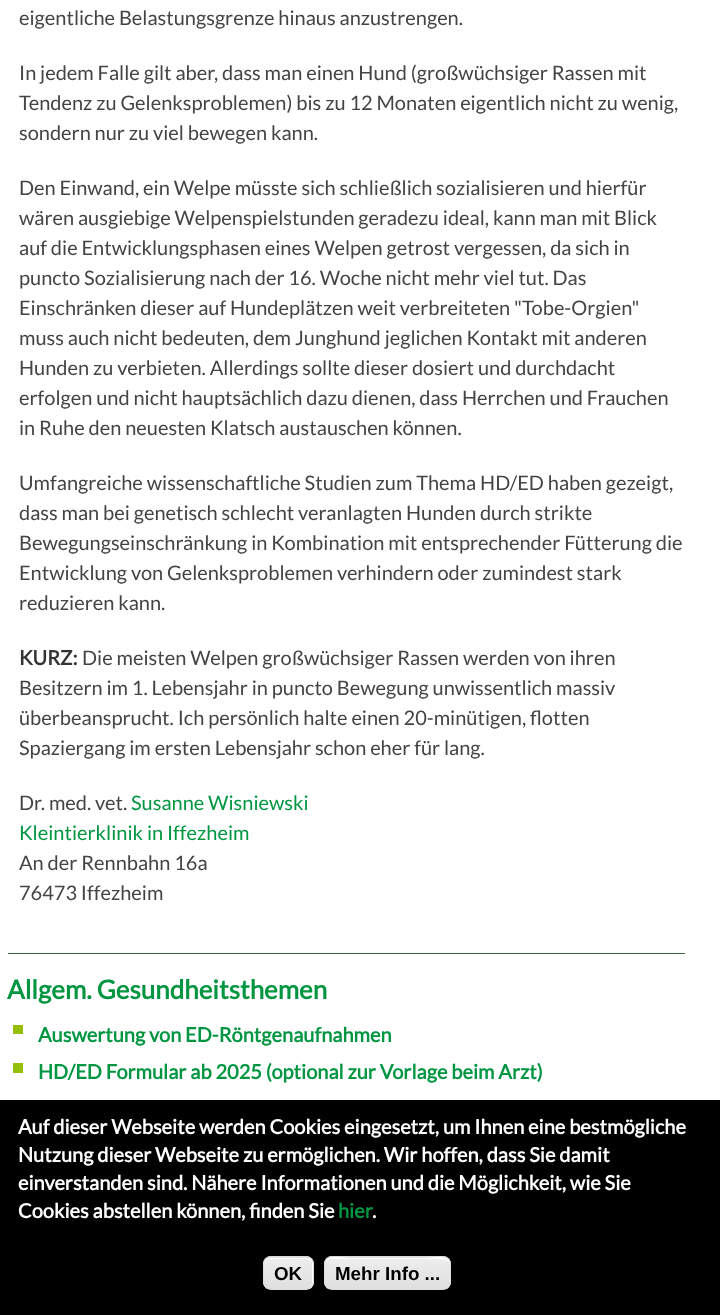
async function draw(canvas) {
	canvas.width = 720;
	canvas.height = 1315;
	const c = canvas.getContext('2d');
	c.miterLimit = 4;
	c.fontKerning = 'normal';
	let gradient;

	c.fillStyle = '#fff';
	c.fillRect(0, 0, 720, 1315);
	c.font = '20px Lato';
	c.fillStyle = '#444';
	for (const [text, x, y] of [
		['eigentliche Belastungsgrenze hinaus anzustrengen.', 19, 25],
		['In jedem Falle gilt aber, dass man einen Hund (großwüchsiger Rassen mit', 19, 80],
		['Tendenz zu Gelenksproblemen) bis zu 12 Monaten eigentlich nicht zu wenig,', 19, 110],
		['sondern nur zu viel bewegen kann.', 19, 140],
		['Den Einwand, ein Welpe müsste sich schließlich sozialisieren und hierfür', 19, 195],
		['wären ausgiebige Welpenspielstunden geradezu ideal, kann man mit Blick', 19, 225],
		['auf die Entwicklungsphasen eines Welpen getrost vergessen, da sich in', 19, 255],
		['puncto Sozialisierung nach der 16. Woche nicht mehr viel tut. Das', 19, 285],
		['Einschränken dieser auf Hundeplätzen weit verbreiteten "Tobe-Orgien"', 19, 315],
		['muss auch nicht bedeuten, dem Junghund jeglichen Kontakt mit anderen', 19, 345],
		['Hunden zu verbieten. Allerdings sollte dieser dosiert und durchdacht', 19, 375],
		['erfolgen und nicht hauptsächlich dazu dienen, dass Herrchen und Frauchen', 19, 405],
		['in Ruhe den neuesten Klatsch austauschen können.', 19, 435],
		['Umfangreiche wissenschaftliche Studien zum Thema HD/ED haben gezeigt,', 19, 490],
		['dass man bei genetisch schlecht veranlagten Hunden durch strikte', 19, 520],
		['Bewegungseinschränkung in Kombination mit entsprechender Fütterung die', 19, 550],
		['Entwicklung von Gelenksproblemen verhindern oder zumindest stark', 19, 580],
		['reduzieren kann.', 19, 610],
	]) {
		c.fillText(text, x, y);
	}
	c.font = 'bold 20px Lato';
	c.fillStyle = '#333';
	c.fillText('KURZ:', 19, 665);
	c.font = '20px Lato';
	c.fillStyle = '#444';
	for (const [text, x, y] of [
		['Die meisten Welpen großwüchsiger Rassen werden von ihren', 82, 665],
		['Besitzern im 1. Lebensjahr in puncto Bewegung unwissentlich massiv', 19, 695],
		['überbeansprucht. Ich persönlich halte einen 20-minütigen, flotten', 19, 725],
		['Spaziergang im ersten Lebensjahr schon eher für lang.', 19, 755],
		['Dr. med. vet.', 19, 810],
	]) {
		c.fillText(text, x, y);
	}
	c.fillStyle = '#009641';
	c.fillText('Susanne Wisniewski', 131, 810);
	c.fillText('Kleintierklinik in Iffezheim', 19, 840);
	c.fillStyle = '#444';
	c.fillText('An der Rennbahn 16a', 19, 870);
	c.fillText('76473 Iffezheim', 19, 900);
	c.fillStyle = '#38693c';
	c.fillRect(8, 953, 677, 1);
	c.font = 'bold 26px Lato';
	c.fillStyle = '#009641';
	c.fillText('Allgem. Gesundheitsthemen', 7, 999);
	c.fillStyle = '#96bf0c';
	c.fillRect(13, 1025, 10, 9);
	c.font = 'bold 20px Lato';
	c.fillStyle = '#009641';
	c.fillText('Auswertung von ED-Röntgenaufnahmen', 38, 1042);
	c.fillStyle = '#96bf0c';
	c.fillRect(13, 1063, 10, 10);
	c.fillStyle = '#009641';
	c.fillText('HD/ED Formular ab 2025 (optional zur Vorlage beim Arzt)', 38, 1079);
	c.fillStyle = '#000';
	c.fillRect(0, 1100, 720, 215);
	c.fillStyle = '#fff';
	for (const [text, x, y] of [
		['Auf dieser Webseite werden Cookies eingesetzt, um Ihnen eine bestmögliche', 18, 1134],
		['Nutzung dieser Webseite zu ermöglichen. Wir hoffen, dass Sie damit', 18, 1162],
		['einverstanden sind. Nähere Informationen und die Möglichkeit, wie Sie', 18, 1190],
		['Cookies abstellen können, finden Sie', 18, 1218],
	]) {
		c.fillText(text, x, y);
	}
	c.fillStyle = '#009641';
	c.fillText('hier', 338, 1218);
	c.fillStyle = '#fff';
	c.fillText('.', 372, 1218);
	c.save();
	c.beginPath();
	c.roundRect(263, 1256, 51, 34, 8);
	c.clip();
	gradient = c.createLinearGradient(264, 1226, 264, 1258);
	gradient.addColorStop(0.05, '#ededed');
	gradient.addColorStop(1, '#dfdfdf');
	c.fillStyle = gradient;
	c.fillRect(263, 1256, 51, 2);
	gradient = c.createLinearGradient(264, 1258, 264, 1289);
	gradient.addColorStop(0.05, '#ededed');
	gradient.addColorStop(1, '#dfdfdf');
	c.fillStyle = gradient;
	c.fillRect(263, 1258, 51, 31);
	c.restore();
	c.beginPath();
	c.moveTo(270, 1259);
	c.lineTo(295, 1259);
	c.bezierCurveTo(299, 1259, 305, 1258, 309, 1260);
	c.bezierCurveTo(310, 1260, 311, 1261, 312, 1262);
	c.bezierCurveTo(312, 1264, 312, 1281, 312, 1284);
	c.lineTo(311, 1288);
	c.bezierCurveTo(312, 1287, 313, 1285, 313, 1283);
	c.lineTo(313, 1264);
	c.bezierCurveTo(313, 1261, 310, 1258, 307, 1258);
	c.lineTo(270, 1258);
	c.bezierCurveTo(267, 1258, 264, 1261, 264, 1264);
	c.lineTo(264, 1265);
	c.bezierCurveTo(264, 1262, 266, 1259, 270, 1259);
	c.closePath();
	c.moveTo(264, 1285);
	c.lineTo(264, 1274);
	c.bezierCurveTo(264, 1277, 263, 1282, 264, 1285);
	c.closePath();
	c.fill('evenodd');
	c.beginPath();
	c.roundRect(263.5, 1256.5, 50, 33, 7.5);
	c.strokeStyle = '#dcdcdc';
	c.stroke();
	c.font = 'bold 18.75px Liberation Sans';
	c.fillStyle = '#000';
	c.fillText('OK', 274, 1280);
	c.save();
	c.beginPath();
	c.roundRect(324, 1256, 127, 34, 8);
	c.clip();
	gradient = c.createLinearGradient(325, 1226, 325, 1258);
	gradient.addColorStop(0.05, '#ededed');
	gradient.addColorStop(1, '#dfdfdf');
	c.fillStyle = gradient;
	c.fillRect(324, 1256, 127, 2);
	gradient = c.createLinearGradient(325, 1258, 325, 1289);
	gradient.addColorStop(0.05, '#ededed');
	gradient.addColorStop(1, '#dfdfdf');
	c.fillStyle = gradient;
	c.fillRect(324, 1258, 127, 31);
	c.restore();
	c.fillStyle = '#fff';
	c.beginPath();
	c.moveTo(331, 1259);
	c.lineTo(444, 1259);
	c.bezierCurveTo(447, 1259, 450, 1262, 450, 1265);
	c.bezierCurveTo(450, 1253, 431, 1258, 425, 1258);
	c.lineTo(350, 1258);
	c.bezierCurveTo(344, 1258, 325, 1253, 325, 1265);
	c.bezierCurveTo(325, 1262, 328, 1259, 331, 1259);
	c.closePath();
	c.fill();
	c.beginPath();
	c.roundRect(324.5, 1256.5, 126, 33, 7.5);
	c.stroke();
	c.fillStyle = '#000';
	c.fillText('Mehr Info ...', 335, 1280);
}

draw(document.querySelector('canvas'));
